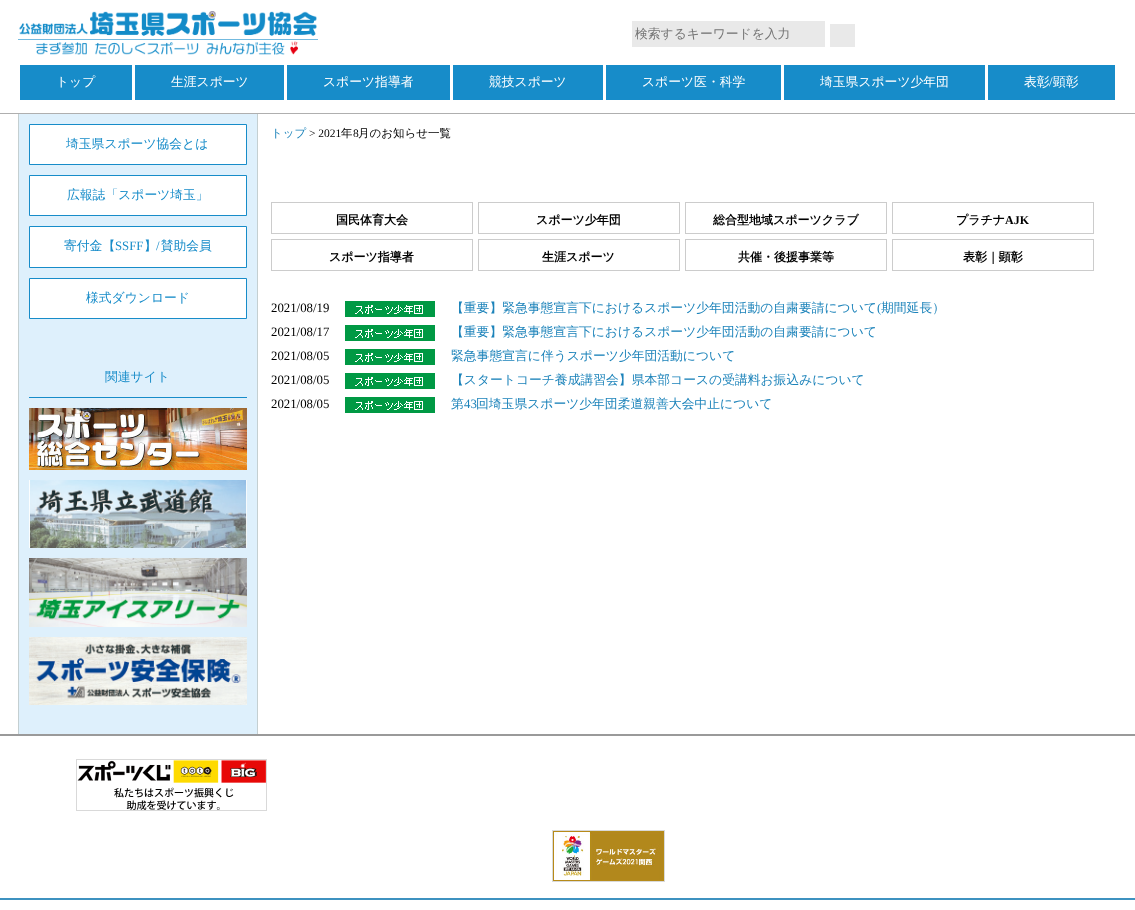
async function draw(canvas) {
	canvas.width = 1135;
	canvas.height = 910;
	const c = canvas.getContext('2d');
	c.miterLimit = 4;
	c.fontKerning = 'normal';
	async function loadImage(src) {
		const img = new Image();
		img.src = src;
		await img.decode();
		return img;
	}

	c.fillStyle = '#fff';
	c.fillRect(0, 0, 1135, 910);
	c.drawImage(await loadImage('img1.png'), 18, 11, 300, 44);
	c.fillStyle = '#e9e9e9';
	c.fillRect(632, 21, 193, 26);
	c.font = '500 12.8px WenQuanYi Zen Hei';
	c.fillStyle = '#757575';
	c.fillText('検索するキーワードを入力', 635, 38);
	c.fillStyle = '#e9e9e9';
	c.fillRect(830, 24, 25, 23);
	c.fillStyle = '#178cc9';
	c.fillRect(20, 65, 112, 35);
	c.fillStyle = '#fff';
	c.fillText('トップ', 56, 86);
	c.fillStyle = '#178cc9';
	c.fillRect(135, 65, 149, 35);
	c.fillStyle = '#fff';
	c.fillText('生涯スポーツ', 171, 86);
	c.fillStyle = '#178cc9';
	c.fillRect(287, 65, 163, 35);
	c.fillStyle = '#fff';
	c.fillText('スポーツ指導者', 323, 86);
	c.fillStyle = '#178cc9';
	c.fillRect(453, 65, 150, 35);
	c.fillStyle = '#fff';
	c.fillText('競技スポーツ', 489, 86);
	c.fillStyle = '#178cc9';
	c.fillRect(606, 65, 175, 35);
	c.fillStyle = '#fff';
	c.fillText('スポーツ医・科学', 642, 86);
	c.fillStyle = '#178cc9';
	c.fillRect(784, 65, 201, 35);
	c.fillStyle = '#fff';
	c.fillText('埼玉県スポーツ少年団', 820, 86);
	c.fillStyle = '#178cc9';
	c.fillRect(988, 65, 127, 35);
	c.fillStyle = '#fff';
	c.fillText('表彰', 1024, 86);
	c.font = '12.8px Liberation Serif';
	c.fillText('/', 1049, 86);
	c.font = '500 12.8px WenQuanYi Zen Hei';
	c.fillText('顕彰', 1053, 86);
	for (const [x, y, w, h, color] of [
		[0, 113, 1135, 1, '#afafaf'],
		[0, 734, 1135, 2, '#9a9a9a'],
		[19, 114, 238, 620, '#def0fc'],
		[257, 114, 1, 620, '#c4cfd1'],
		[18, 114, 1, 620, '#c4cfd1'],
	]) {
		c.fillStyle = color;
		c.fillRect(x, y, w, h);
	}
	c.fillStyle = '#fff';
	c.beginPath();
	c.rect(29.5, 124.5, 217, 40);
	c.fill();
	c.strokeStyle = '#178cc9';
	c.stroke();
	c.fillStyle = '#178cc9';
	c.fillText('埼玉県スポーツ協会とは', 66, 148);
	c.fillStyle = '#fff';
	c.beginPath();
	c.rect(29.5, 175.5, 217, 40);
	c.fill();
	c.stroke();
	c.fillStyle = '#178cc9';
	c.fillText('広報誌「スポーツ埼玉」', 67, 199);
	c.fillStyle = '#fff';
	c.beginPath();
	c.rect(29.5, 226.5, 217, 41);
	c.fill();
	c.stroke();
	c.fillStyle = '#178cc9';
	c.fillText('寄付金【', 64, 250);
	c.font = '12.8px Liberation Serif';
	c.fillText('SSFF', 115, 250);
	c.font = '500 12.8px WenQuanYi Zen Hei';
	c.fillText('】 賛助会員', 144, 250);
	c.font = '12.8px Liberation Serif';
	c.fillText('/', 156, 250);
	c.fillStyle = '#fff';
	c.beginPath();
	c.rect(29.5, 278.5, 217, 40);
	c.fill();
	c.stroke();
	c.font = '500 12.8px WenQuanYi Zen Hei';
	c.fillStyle = '#178cc9';
	c.fillText('様式ダウンロード', 86, 302);
	c.fillRect(29, 397, 218, 1);
	c.fillText('関連サイト', 105, 381);
	c.drawImage(await loadImage('img2.png'), 29, 408, 218, 62);
	c.drawImage(await loadImage('img3.png'), 29, 480, 218, 68);
	c.drawImage(await loadImage('img4.png'), 29, 558, 218, 69);
	c.drawImage(await loadImage('img5.png'), 29, 637, 218, 68);
	c.font = '500 11.5px WenQuanYi Zen Hei';
	c.fillStyle = '#1c83ba';
	c.fillText('トップ', 271, 137);
	c.font = '11.5px Liberation Serif';
	c.fillStyle = '#000';
	c.fillText('> 2021', 309, 137);
	c.font = '500 11.5px WenQuanYi Zen Hei';
	c.fillText('年', 341, 137);
	c.font = '11.5px Liberation Serif';
	c.fillText('8', 353, 137);
	c.font = '500 11.5px WenQuanYi Zen Hei';
	c.fillText('月のお知らせ一覧', 358, 137);
	c.strokeStyle = '#ccc';
	c.strokeRect(271.5, 202.5, 201, 31);
	c.font = 'bold 12px WenQuanYi Zen Hei';
	c.fillText('国民体育大会', 336, 224);
	c.strokeRect(478.5, 202.5, 201, 31);
	c.fillText('スポーツ少年団', 536, 224);
	c.strokeRect(685.5, 202.5, 201, 31);
	c.fillText('総合型地域スポーツクラブ', 713, 224);
	c.strokeRect(892.5, 202.5, 201, 31);
	c.fillText('プラチナ', 956, 224);
	c.font = 'bold 12px Liberation Serif';
	c.fillText('AJK', 1005, 224);
	c.strokeRect(271.5, 239.5, 201, 31);
	c.font = 'bold 12px WenQuanYi Zen Hei';
	c.fillText('スポーツ指導者', 329, 261);
	c.strokeRect(478.5, 239.5, 201, 31);
	c.fillText('生涯スポーツ', 542, 261);
	c.strokeRect(685.5, 239.5, 201, 31);
	c.fillText('共催・後援事業等', 738, 261);
	c.strokeRect(892.5, 239.5, 201, 31);
	c.fillText('表彰｜顕彰', 963, 261);
	c.font = '12.8px Liberation Serif';
	c.fillText('2021/08/19', 271, 312);
	c.drawImage(await loadImage('img6.png'), 345, 301, 90, 16);
	c.font = '500 12.8px WenQuanYi Zen Hei';
	c.fillStyle = '#1c83ba';
	c.fillText('【重要】緊急事態宣言下におけるスポーツ少年団活動の自粛要請について', 451, 312);
	c.font = '12.8px Liberation Serif';
	c.fillText('(', 877, 312);
	c.font = '500 12.8px WenQuanYi Zen Hei';
	c.fillText('期間延長）', 881, 312);
	c.font = '12.8px Liberation Serif';
	c.fillStyle = '#000';
	c.fillText('2021/08/17', 271, 336);
	c.drawImage(await loadImage('img6.png'), 345, 325, 90, 16);
	c.font = '500 12.8px WenQuanYi Zen Hei';
	c.fillStyle = '#1c83ba';
	c.fillText('【重要】緊急事態宣言下におけるスポーツ少年団活動の自粛要請について', 451, 336);
	c.font = '12.8px Liberation Serif';
	c.fillStyle = '#000';
	c.fillText('2021/08/05', 271, 360);
	c.drawImage(await loadImage('img6.png'), 345, 349, 90, 16);
	c.font = '500 12.8px WenQuanYi Zen Hei';
	c.fillStyle = '#1c83ba';
	c.fillText('緊急事態宣言に伴うスポーツ少年団活動について', 451, 360);
	c.font = '12.8px Liberation Serif';
	c.fillStyle = '#000';
	c.fillText('2021/08/05', 271, 384);
	c.drawImage(await loadImage('img6.png'), 345, 373, 90, 16);
	c.font = '500 12.8px WenQuanYi Zen Hei';
	c.fillStyle = '#1c83ba';
	c.fillText('【スタートコーチ養成講習会】県本部コースの受講料お振込みについて', 451, 384);
	c.font = '12.8px Liberation Serif';
	c.fillStyle = '#000';
	c.fillText('2021/08/05', 271, 408);
	c.drawImage(await loadImage('img6.png'), 345, 397, 90, 16);
	c.font = '500 12.8px WenQuanYi Zen Hei';
	c.fillStyle = '#1c83ba';
	c.fillText('第', 451, 408);
	c.font = '12.8px Liberation Serif';
	c.fillText('43', 464, 408);
	c.font = '500 12.8px WenQuanYi Zen Hei';
	c.fillText('回埼玉県スポーツ少年団柔道親善大会中止について', 476, 408);
	c.strokeStyle = '#d9d9d9';
	c.strokeRect(76.5, 759.5, 190, 51);
	c.drawImage(await loadImage('img7.png'), 77, 760, 189, 50);
	c.strokeRect(552.5, 830.5, 112, 51);
	c.drawImage(await loadImage('img8.png'), 553, 831, 111, 50);
	c.fillStyle = '#3e92c0';
	c.fillRect(0, 898, 1135, 2);
}

draw(document.querySelector('canvas'));
